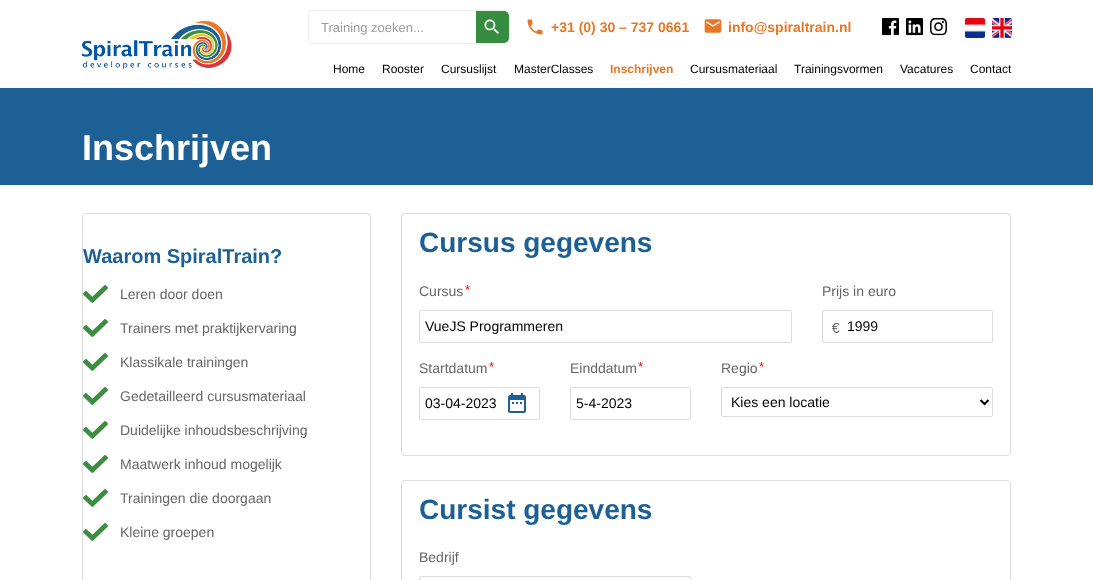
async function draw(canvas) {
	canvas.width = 1093;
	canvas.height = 580;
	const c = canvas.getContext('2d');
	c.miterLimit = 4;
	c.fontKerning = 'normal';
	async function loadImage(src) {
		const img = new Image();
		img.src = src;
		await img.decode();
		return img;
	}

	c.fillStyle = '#fff';
	c.fillRect(0, 0, 1093, 580);
	c.drawImage(await loadImage('img1.png'), 82, 20, 150, 49);
	c.fillStyle = '#00000033';
	c.filter = 'blur(1px)';
	c.beginPath();
	c.roundRect(309, 11, 200, 32, 3);
	c.fill();
	c.filter = 'none';
	c.fillStyle = '#fff';
	c.beginPath();
	c.roundRect(309, 11, 200, 32, 3);
	c.fill();
	c.font = '13px Liberation Sans';
	c.fillStyle = '#9b9b9b';
	c.fillText('Training zoeken...', 321, 32);
	c.fillStyle = '#378d3f';
	c.beginPath();
	c.roundRect(476, 11, 33, 32, [0, 5, 5, 0]);
	c.fill();
	c.drawImage(await loadImage('img2.png'), 484, 19, 15, 15);
	c.drawImage(await loadImage('img3.png'), 527, 19, 16, 16);
	c.font = 'bold 14px Liberation Sans';
	c.fillStyle = '#e77828';
	c.fillText('+31 (0) 30 – 737 0661', 551, 32);
	c.drawImage(await loadImage('img4.png'), 704, 19, 18, 14);
	c.fillText('info@spiraltrain.nl', 728, 32);
	c.drawImage(await loadImage('img5.png'), 882, 18, 17, 18);
	c.drawImage(await loadImage('img6.png'), 906, 18, 17, 18);
	c.drawImage(await loadImage('img7.png'), 930, 18, 17, 18);
	c.drawImage(await loadImage('img8.png'), 965, 18, 20, 20);
	c.drawImage(await loadImage('img9.png'), 992, 18, 20, 20);
	c.font = '12px Liberation Sans';
	c.fillStyle = '#000';
	for (const [text, x, y] of [
		['Home', 333, 73],
		['Rooster', 382, 73],
		['Cursuslijst', 441, 73],
		['MasterClasses', 514, 73],
	]) {
		c.fillText(text, x, y);
	}
	c.font = 'bold 12px Liberation Sans';
	c.fillStyle = '#e77828';
	c.fillText('Inschrijven', 610, 73);
	c.font = '12px Liberation Sans';
	c.fillStyle = '#000';
	for (const [text, x, y] of [
		['Cursusmateriaal', 690, 73],
		['Trainingsvormen', 794, 73],
		['Vacatures', 900, 73],
		['Contact', 970, 73],
	]) {
		c.fillText(text, x, y);
	}
	c.fillStyle = '#1d6095';
	c.fillRect(0, 88, 1093, 97);
	c.font = 'bold 36px Liberation Sans';
	c.fillStyle = '#fff';
	c.fillText('Inschrijven', 82, 160);
	c.beginPath();
	c.roundRect(82.5, 213.5, 288, 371, 3.5);
	c.strokeStyle = '#dcdcdc';
	c.stroke();
	c.font = 'bold 20px Liberation Sans';
	c.fillStyle = '#1d6095';
	c.fillText('Waarom SpiralTrain?', 83, 263);
	c.drawImage(await loadImage('img10.png'), 83, 285, 25, 18);
	c.font = '14px Liberation Sans';
	c.fillStyle = '#666';
	c.fillText('Leren door doen', 120, 299);
	c.drawImage(await loadImage('img10.png'), 83, 319, 25, 18);
	c.fillText('Trainers met praktijkervaring', 120, 333);
	c.drawImage(await loadImage('img10.png'), 83, 353, 25, 18);
	c.fillText('Klassikale trainingen', 120, 367);
	c.drawImage(await loadImage('img10.png'), 83, 387, 25, 18);
	c.fillText('Gedetailleerd cursusmateriaal', 120, 401);
	c.drawImage(await loadImage('img10.png'), 83, 421, 25, 18);
	c.fillText('Duidelijke inhoudsbeschrijving', 120, 435);
	c.drawImage(await loadImage('img10.png'), 83, 455, 25, 18);
	c.fillText('Maatwerk inhoud mogelijk', 120, 469);
	c.drawImage(await loadImage('img10.png'), 83, 489, 25, 18);
	c.fillText('Trainingen die doorgaan', 120, 503);
	c.drawImage(await loadImage('img10.png'), 83, 523, 25, 18);
	c.fillText('Kleine groepen', 120, 537);
	c.beginPath();
	c.roundRect(401.5, 213.5, 609, 242, 3.5);
	c.stroke();
	c.font = 'bold 28px Liberation Sans';
	c.fillStyle = '#1d6095';
	c.fillText('Cursus gegevens', 419, 252);
	c.font = '14px Liberation Sans';
	c.fillStyle = '#666';
	c.fillText('Cursus', 419, 296);
	c.font = '13px Liberation Sans';
	c.fillStyle = '#f00';
	c.fillText('*', 465, 294);
	c.beginPath();
	c.roundRect(419.5, 310.5, 372, 32, 1.5);
	c.stroke();
	c.font = '14px Liberation Sans';
	c.fillStyle = '#000';
	c.fillText('VueJS Programmeren', 425, 331);
	c.fillStyle = '#666';
	c.fillText('Prijs in euro', 822, 296);
	c.drawImage(await loadImage('img11.png'), 832, 323, 8, 10);
	c.beginPath();
	c.roundRect(822.5, 310.5, 170, 32, 1.5);
	c.stroke();
	c.fillStyle = '#000';
	c.fillText('1999', 847, 331);
	c.fillStyle = '#666';
	c.fillText('Startdatum', 419, 373);
	c.font = '13px Liberation Sans';
	c.fillStyle = '#f00';
	c.fillText('*', 489, 371);
	c.beginPath();
	c.roundRect(419.5, 387.5, 120, 32, 1.5);
	c.stroke();
	c.font = '14px Liberation Sans';
	c.fillStyle = '#000';
	c.fillText('03-04-2023', 425, 408);
	c.drawImage(await loadImage('img12.png'), 508, 393, 18, 20);
	c.fillStyle = '#666';
	c.fillText('Einddatum', 570, 373);
	c.font = '13px Liberation Sans';
	c.fillStyle = '#f00';
	c.fillText('*', 638, 371);
	c.beginPath();
	c.roundRect(570.5, 387.5, 120, 32, 1.5);
	c.stroke();
	c.font = '14px Liberation Sans';
	c.fillStyle = '#000';
	c.fillText('5-4-2023', 576, 408);
	c.fillStyle = '#666';
	c.fillText('Regio', 721, 373);
	c.font = '13px Liberation Sans';
	c.fillStyle = '#f00';
	c.fillText('*', 759, 371);
	c.beginPath();
	c.roundRect(721.5, 387.5, 271, 29, 1.5);
	c.stroke();
	c.beginPath();
	c.moveTo(980.5, 400);
	c.lineTo(984.5, 404);
	c.lineTo(988.5, 400);
	c.strokeStyle = '#000';
	c.lineWidth = 2;
	c.stroke();
	c.font = '14px Liberation Sans';
	c.fillStyle = '#000';
	c.fillText('Kies een locatie', 731, 407);
	c.beginPath();
	c.roundRect(401.5, 480.5, 609, 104, 3.5);
	c.strokeStyle = '#dcdcdc';
	c.lineWidth = 1;
	c.stroke();
	c.font = 'bold 28px Liberation Sans';
	c.fillStyle = '#1d6095';
	c.fillText('Cursist gegevens', 419, 519);
	c.font = '14px Liberation Sans';
	c.fillStyle = '#666';
	c.fillText('Bedrijf', 419, 562);
	c.beginPath();
	c.roundRect(419.5, 576.5, 271, 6, 1.5);
	c.stroke();
}

draw(document.querySelector('canvas'));
